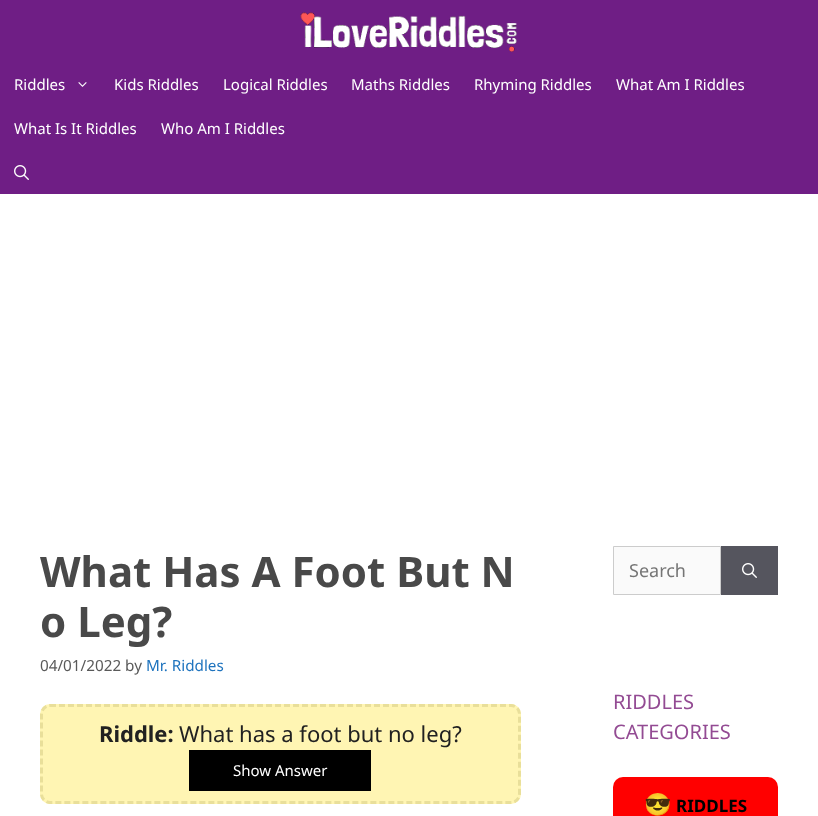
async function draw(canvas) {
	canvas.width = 818;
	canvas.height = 816;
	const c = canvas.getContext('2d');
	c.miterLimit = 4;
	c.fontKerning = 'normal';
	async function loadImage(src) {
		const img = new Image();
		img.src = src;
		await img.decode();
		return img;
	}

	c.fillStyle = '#fff';
	c.fillRect(0, 0, 818, 816);
	c.fillStyle = '#6f1e85';
	c.fillRect(0, 0, 818, 194);
	c.drawImage(await loadImage('img1.png'), 300, 12, 217, 40);
	c.font = '15px Noto Sans';
	c.fillStyle = '#fff';
	c.fillText('Riddles', 14, 90);
	c.drawImage(await loadImage('img2.png'), 78, 82, 9, 5);
	for (const [text, x, y] of [
		['Kids Riddles', 114, 90],
		['Logical Riddles', 223, 90],
		['Maths Riddles', 351, 90],
		['Rhyming Riddles', 474, 90],
		['What Am I Riddles', 616, 90],
		['What Is It Riddles', 14, 134],
		['Who Am I Riddles', 161, 134],
	]) {
		c.fillText(text, x, y);
	}
	c.drawImage(await loadImage('img3.png'), 14, 165, 15, 15);
	c.font = 'bold 42px Noto Sans';
	c.fillStyle = '#494949';
	c.fillText('What Has A Foot But N', 40, 587);
	c.fillText('o Leg?', 40, 637);
	c.font = '15.25px Noto Sans';
	c.fillStyle = '#595959';
	c.fillText('04/01/2022 by', 40, 671);
	c.fillStyle = '#1e73be';
	c.fillText('Mr. Riddles', 146, 671);
	c.fillStyle = '#fff5b3';
	c.beginPath();
	c.roundRect(40, 704, 481, 100, 10);
	c.fill();
	c.beginPath();
	c.moveTo(50, 705.5);
	c.lineTo(511, 705.5);
	c.bezierCurveTo(515.5, 705.5, 519.5, 709.5, 519.5, 714);
	c.lineTo(519.5, 794);
	c.bezierCurveTo(519.5, 798.5, 515.5, 802.5, 511, 802.5);
	c.lineTo(50, 802.5);
	c.bezierCurveTo(45.5, 802.5, 41.5, 798.5, 41.5, 794);
	c.lineTo(41.5, 714);
	c.bezierCurveTo(41.5, 709.5, 45.5, 705.5, 50, 705.5);
	c.closePath();
	c.strokeStyle = '#e9df9a';
	c.lineWidth = 3;
	c.setLineDash([6, 3]);
	c.stroke();
	c.font = 'bold 22px Noto Sans';
	c.fillStyle = '#212121';
	c.fillText('Riddle:', 99, 742);
	c.font = '22px Noto Sans';
	c.fillText('What has a foot but no leg?', 179, 742);
	c.fillStyle = '#000';
	c.fillRect(189, 750, 182, 41);
	c.font = '15px Noto Sans';
	c.fillStyle = '#fff';
	c.fillText('Show Answer', 233, 776);
	c.fillStyle = '#fafafa';
	c.beginPath();
	c.rect(613.5, 546.5, 107, 48);
	c.fill();
	c.strokeStyle = '#ccc';
	c.lineWidth = 1;
	c.setLineDash([]);
	c.stroke();
	c.font = '18px Noto Sans';
	c.fillStyle = '#757575';
	c.fillText('Search', 629, 577);
	c.fillStyle = '#55555e';
	c.fillRect(721, 546, 57, 49);
	c.drawImage(await loadImage('img4.png'), 742, 563, 15, 15);
	c.font = '20px Noto Sans';
	c.fillStyle = '#934b93';
	c.fillText('RIDDLES', 613, 709);
	c.fillText('CATEGORIES', 613, 739);
	c.fillStyle = '#f00';
	c.beginPath();
	c.roundRect(613, 777, 165, 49, 10);
	c.fill();
	c.font = 'bold 22px Noto Color Emoji';
	c.fillStyle = '#000';
	c.fillText('😎', 644, 812);
	c.font = 'bold 17px Noto Sans';
	c.fillText('RIDDLES', 676, 812);
}

draw(document.querySelector('canvas'));
